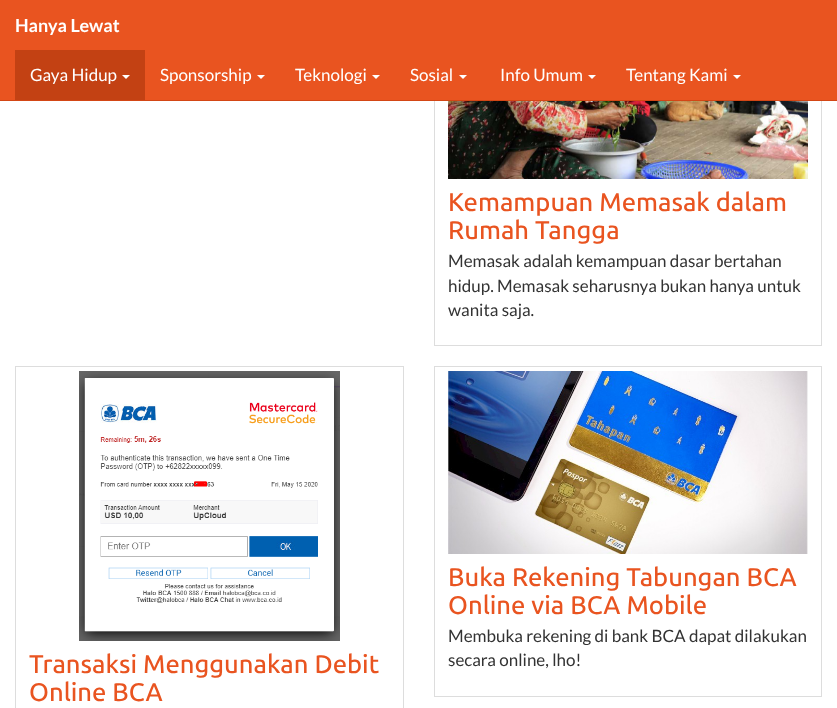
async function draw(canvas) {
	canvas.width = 837;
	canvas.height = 708;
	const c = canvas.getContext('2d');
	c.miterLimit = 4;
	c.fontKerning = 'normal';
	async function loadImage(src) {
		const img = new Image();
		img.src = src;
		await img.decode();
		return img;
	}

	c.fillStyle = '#fff';
	c.fillRect(0, 0, 837, 708);
	c.strokeStyle = '#ddd';
	c.strokeRect(434.5, -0.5, 387, 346);
	c.fillStyle = '#e95420';
	c.fillRect(0, 0, 837, 100);
	c.fillStyle = '#d34615';
	c.fillRect(0, 100, 837, 1);
	c.font = 'bold 18px Lato';
	c.fillStyle = '#fff';
	c.fillText('Hanya Lewat', 15, 32);
	c.fillStyle = '#c34113';
	c.fillRect(15, 50, 130, 50);
	c.font = '17px Lato';
	c.fillStyle = '#fff';
	c.fillText('Gaya Hidup', 30, 81);
	c.beginPath();
	c.moveTo(122, 75);
	c.lineTo(130, 75);
	c.lineTo(126, 79);
	c.closePath();
	c.fill();
	c.fillText('Sponsorship', 160, 81);
	c.beginPath();
	c.moveTo(257, 75);
	c.lineTo(265, 75);
	c.lineTo(261, 79);
	c.closePath();
	c.fill();
	c.fillText('Teknologi', 295, 81);
	c.beginPath();
	c.moveTo(372, 75);
	c.lineTo(380, 75);
	c.lineTo(376, 79);
	c.closePath();
	c.fill();
	c.fillText('Sosial', 410, 81);
	c.beginPath();
	c.moveTo(459, 75);
	c.lineTo(467, 75);
	c.lineTo(463, 79);
	c.closePath();
	c.fill();
	c.fillText('Info Umum', 500, 81);
	c.beginPath();
	c.moveTo(588, 75);
	c.lineTo(596, 75);
	c.lineTo(592, 79);
	c.closePath();
	c.fill();
	c.fillText('Tentang Kami', 626, 81);
	c.beginPath();
	c.moveTo(733, 75);
	c.lineTo(741, 75);
	c.lineTo(737, 79);
	c.closePath();
	c.fill();
	c.drawImage(await loadImage('img1.png'), 448, 101, 360, 78);
	c.font = '500 25.5px Ubuntu';
	c.fillStyle = '#e95420';
	c.fillText('Kemampuan Memasak dalam', 448, 211);
	c.fillText('Rumah Tangga', 448, 239);
	c.font = '17px Lato';
	c.fillStyle = '#333';
	for (const [text, x, y] of [
		['Memasak adalah kemampuan dasar bertahan', 448, 267],
		['hidup. Memasak seharusnya bukan hanya untuk', 448, 292],
		['wanita saja.', 448, 316],
	]) {
		c.fillText(text, x, y);
	}
	c.strokeRect(434.5, 366.5, 387, 330);
	c.drawImage(await loadImage('img2.png'), 448, 371, 360, 183);
	c.font = '500 25.5px Ubuntu';
	c.fillStyle = '#e95420';
	c.fillText('Buka Rekening Tabungan BCA', 448, 586);
	c.fillText('Online via BCA Mobile', 448, 614);
	c.font = '17px Lato';
	c.fillStyle = '#333';
	c.fillText('Membuka rekening di bank BCA dapat dilakukan', 448, 642);
	c.fillText('secara online, lho!', 448, 666);
	c.strokeRect(15.5, 366.5, 388, 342);
	c.drawImage(await loadImage('img3.png'), 79, 371, 261, 270);
	c.font = '500 25.5px Ubuntu';
	c.fillStyle = '#e95420';
	c.fillText('Transaksi Menggunakan Debit', 29, 673);
	c.fillText('Online BCA', 29, 701);
}

draw(document.querySelector('canvas'));
